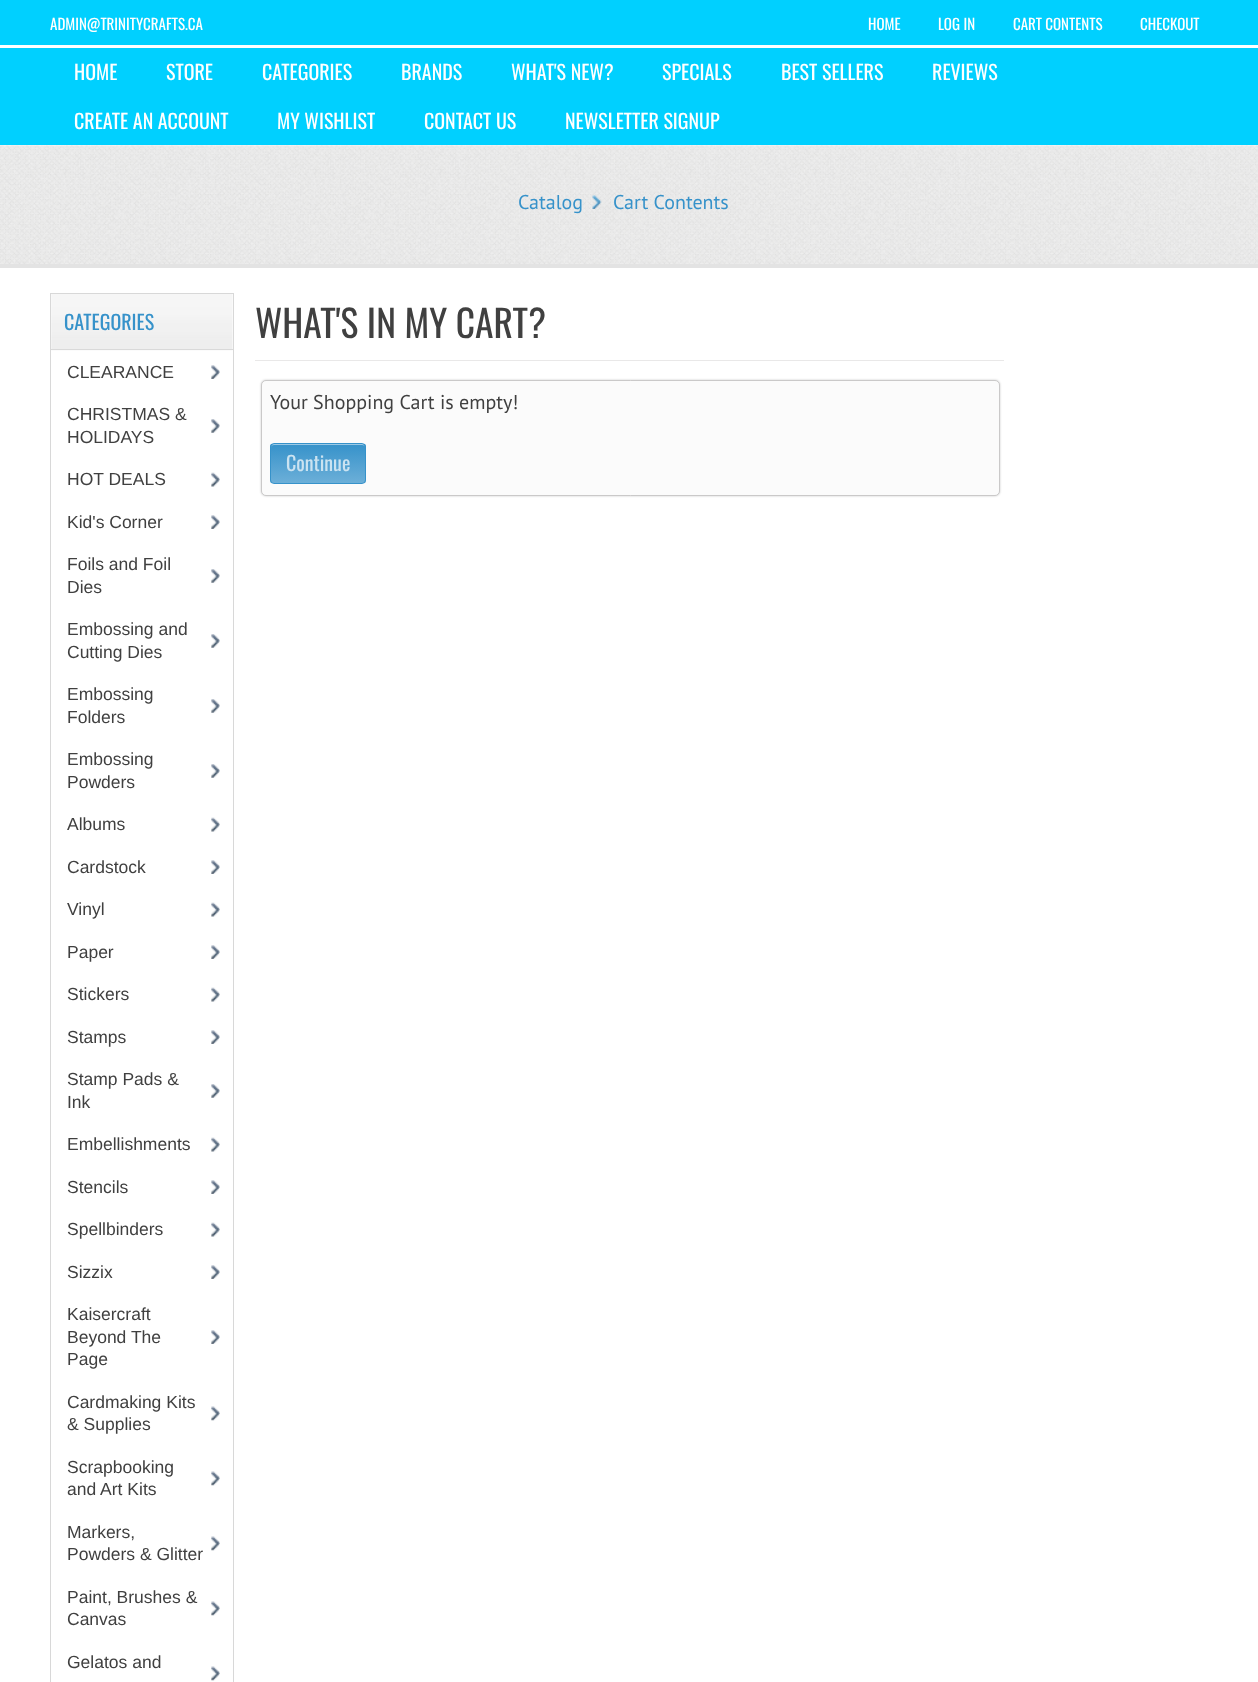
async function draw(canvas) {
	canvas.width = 1258;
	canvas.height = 1682;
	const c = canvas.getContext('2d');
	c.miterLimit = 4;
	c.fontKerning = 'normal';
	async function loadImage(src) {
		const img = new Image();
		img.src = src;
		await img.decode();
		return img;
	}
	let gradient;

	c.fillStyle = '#fff';
	c.fillRect(0, 0, 1258, 1682);
	c.fillStyle = '#00d0ff';
	c.fillRect(0, 0, 1258, 45);
	c.font = '15px Oswald';
	c.fillStyle = '#fff';
	for (const [text, x, y] of [
		['ADMIN@TRINITYCRAFTS.CA', 50, 30],
		['HOME', 868, 30],
		['LOG IN', 938, 30],
		['CART CONTENTS', 1013, 30],
		['CHECKOUT', 1140, 30],
	]) {
		c.fillText(text, x, y);
	}
	c.fillStyle = '#00d0ff';
	c.fillRect(0, 48, 1258, 97);
	c.font = '20px Oswald';
	c.fillStyle = '#fff';
	for (const [text, x, y] of [
		['HOME', 74, 80],
		['STORE', 166, 80],
		['CATEGORIES', 262, 80],
		['BRANDS', 401, 80],
		['WHAT\'S NEW?', 511, 80],
		['SPECIALS', 662, 80],
		['BEST SELLERS', 781, 80],
		['REVIEWS', 932, 80],
		['CREATE AN ACCOUNT', 74, 129],
		['MY WISHLIST', 277, 129],
		['CONTACT US', 424, 129],
		['NEWSLETTER SIGNUP', 565, 129],
	]) {
		c.fillText(text, x, y);
	}
	c.drawImage(await loadImage('img1.png'), 0, 145, 1258, 119);
	c.fillStyle = '#e3e3e3';
	c.fillRect(0, 264, 1258, 4);
	c.drawImage(await loadImage('img2.png'), 592, 195, 10, 14);
	c.font = '20px PT Sans';
	c.fillStyle = '#3692ca';
	c.fillText('Catalog', 518, 209);
	c.fillText('Cart Contents', 613, 209);
	c.strokeStyle = '#d8d8d8';
	c.strokeRect(50.5, 293.5, 183, 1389);
	c.drawImage(await loadImage('img3.png'), 51, 294, 182, 57);
	c.fillStyle = '#d9d9d9';
	c.fillRect(51, 349, 182, 1);
	c.font = '20px Oswald';
	c.fillStyle = '#3692ca';
	c.fillText('CATEGORIES', 64, 330);
	c.drawImage(await loadImage('img4.png'), 211, 365, 9, 14);
	c.font = '17.5px Liberation Sans';
	c.fillStyle = '#404040';
	c.fillText('CLEARANCE', 67, 378);
	c.drawImage(await loadImage('img5.png'), 211, 419, 9, 14);
	c.fillText('CHRISTMAS &', 67, 420);
	c.fillText('HOLIDAYS', 67, 443);
	c.drawImage(await loadImage('img6.png'), 211, 472, 9, 15);
	c.fillText('HOT DEALS', 67, 485);
	c.drawImage(await loadImage('img4.png'), 211, 515, 9, 14);
	c.fillText('Kid\'s Corner', 67, 528);
	c.drawImage(await loadImage('img5.png'), 211, 569, 9, 14);
	c.fillText('Foils and Foil', 67, 570);
	c.fillText('Dies', 67, 593);
	c.drawImage(await loadImage('img5.png'), 211, 634, 9, 14);
	c.fillText('Embossing and', 67, 635);
	c.fillText('Cutting Dies', 67, 658);
	c.drawImage(await loadImage('img5.png'), 211, 699, 9, 14);
	c.fillText('Embossing', 67, 700);
	c.fillText('Folders', 67, 723);
	c.drawImage(await loadImage('img5.png'), 211, 764, 9, 14);
	c.fillText('Embossing', 67, 765);
	c.fillText('Powders', 67, 788);
	c.drawImage(await loadImage('img7.png'), 211, 817, 9, 15);
	c.fillText('Albums', 67, 830);
	c.drawImage(await loadImage('img4.png'), 211, 860, 9, 14);
	c.fillText('Cardstock', 67, 873);
	c.drawImage(await loadImage('img7.png'), 211, 902, 9, 15);
	c.fillText('Vinyl', 67, 915);
	c.drawImage(await loadImage('img4.png'), 211, 945, 9, 14);
	c.fillText('Paper', 67, 958);
	c.drawImage(await loadImage('img7.png'), 211, 987, 9, 15);
	c.fillText('Stickers', 67, 1000);
	c.drawImage(await loadImage('img4.png'), 211, 1030, 9, 14);
	c.fillText('Stamps', 67, 1043);
	c.drawImage(await loadImage('img5.png'), 211, 1084, 9, 14);
	c.fillText('Stamp Pads &', 67, 1085);
	c.fillText('Ink', 67, 1108);
	c.drawImage(await loadImage('img7.png'), 211, 1137, 9, 15);
	c.fillText('Embellishments', 67, 1150);
	c.drawImage(await loadImage('img4.png'), 211, 1180, 9, 14);
	c.fillText('Stencils', 67, 1193);
	c.drawImage(await loadImage('img7.png'), 211, 1222, 9, 15);
	c.fillText('Spellbinders', 67, 1235);
	c.drawImage(await loadImage('img4.png'), 211, 1265, 9, 14);
	c.fillText('Sizzix', 67, 1278);
	c.drawImage(await loadImage('img4.png'), 211, 1330, 9, 14);
	for (const [text, x, y] of [
		['Kaisercraft', 67, 1320],
		['Beyond The', 67, 1343],
		['Page', 67, 1365],
	]) {
		c.fillText(text, x, y);
	}
	c.drawImage(await loadImage('img8.png'), 211, 1406, 9, 15);
	c.fillText('Cardmaking Kits', 67, 1408);
	c.fillText('& Supplies', 67, 1430);
	c.drawImage(await loadImage('img8.png'), 211, 1471, 9, 15);
	c.fillText('Scrapbooking', 67, 1473);
	c.fillText('and Art Kits', 67, 1495);
	c.drawImage(await loadImage('img8.png'), 211, 1536, 9, 15);
	c.fillText('Markers,', 67, 1538);
	c.fillText('Powders & Glitter', 67, 1560);
	c.drawImage(await loadImage('img8.png'), 211, 1601, 9, 15);
	c.fillText('Paint, Brushes &', 67, 1603);
	c.fillText('Canvas', 67, 1625);
	c.drawImage(await loadImage('img8.png'), 211, 1666, 9, 15);
	c.fillText('Gelatos and', 67, 1668);
	c.fillStyle = '#e9e8e8';
	c.fillRect(255, 360, 749, 1);
	c.font = '37.5px Oswald';
	c.fillStyle = '#404040';
	c.fillText('WHAT\'S IN MY CART?', 255, 338);
	c.fillStyle = '#00000033';
	c.filter = 'blur(1px)';
	c.beginPath();
	c.roundRect(261, 380, 739, 116, 5);
	c.fill();
	c.filter = 'none';
	c.fillStyle = '#fbfbfb';
	c.beginPath();
	c.roundRect(261.5, 380.5, 738, 115, 4.5);
	c.fill();
	c.strokeStyle = '#cac9c9';
	c.stroke();
	c.font = '20px PT Sans';
	c.fillStyle = '#404040';
	c.fillText('Your Shopping Cart is empty!', 270, 409);
	c.save();
	c.beginPath();
	c.roundRect(270, 443, 96, 41, 4);
	c.clip();
	gradient = c.createLinearGradient(318, 444, 318, 483);
	gradient.addColorStop(0, '#3692ca');
	gradient.addColorStop(1, '#6cafd8');
	c.fillStyle = gradient;
	c.fillRect(270, 444, 96, 39);
	c.restore();
	c.fillStyle = '#ffffff80';
	c.beginPath();
	c.moveTo(274, 445);
	c.lineTo(362, 445);
	c.bezierCurveTo(364, 445, 365, 446, 365, 448);
	c.bezierCurveTo(365, 440, 353, 444, 348, 444);
	c.lineTo(288, 444);
	c.bezierCurveTo(283, 444, 271, 440, 271, 448);
	c.bezierCurveTo(271, 446, 272, 445, 274, 445);
	c.closePath();
	c.fill();
	c.beginPath();
	c.roundRect(270.5, 443.5, 95, 40, 3.5);
	c.strokeStyle = '#3692ca';
	c.stroke();
	c.font = '20px Oswald';
	c.fillStyle = '#cbe3f1';
	c.fillText('Continue', 286, 471);
}

draw(document.querySelector('canvas'));
